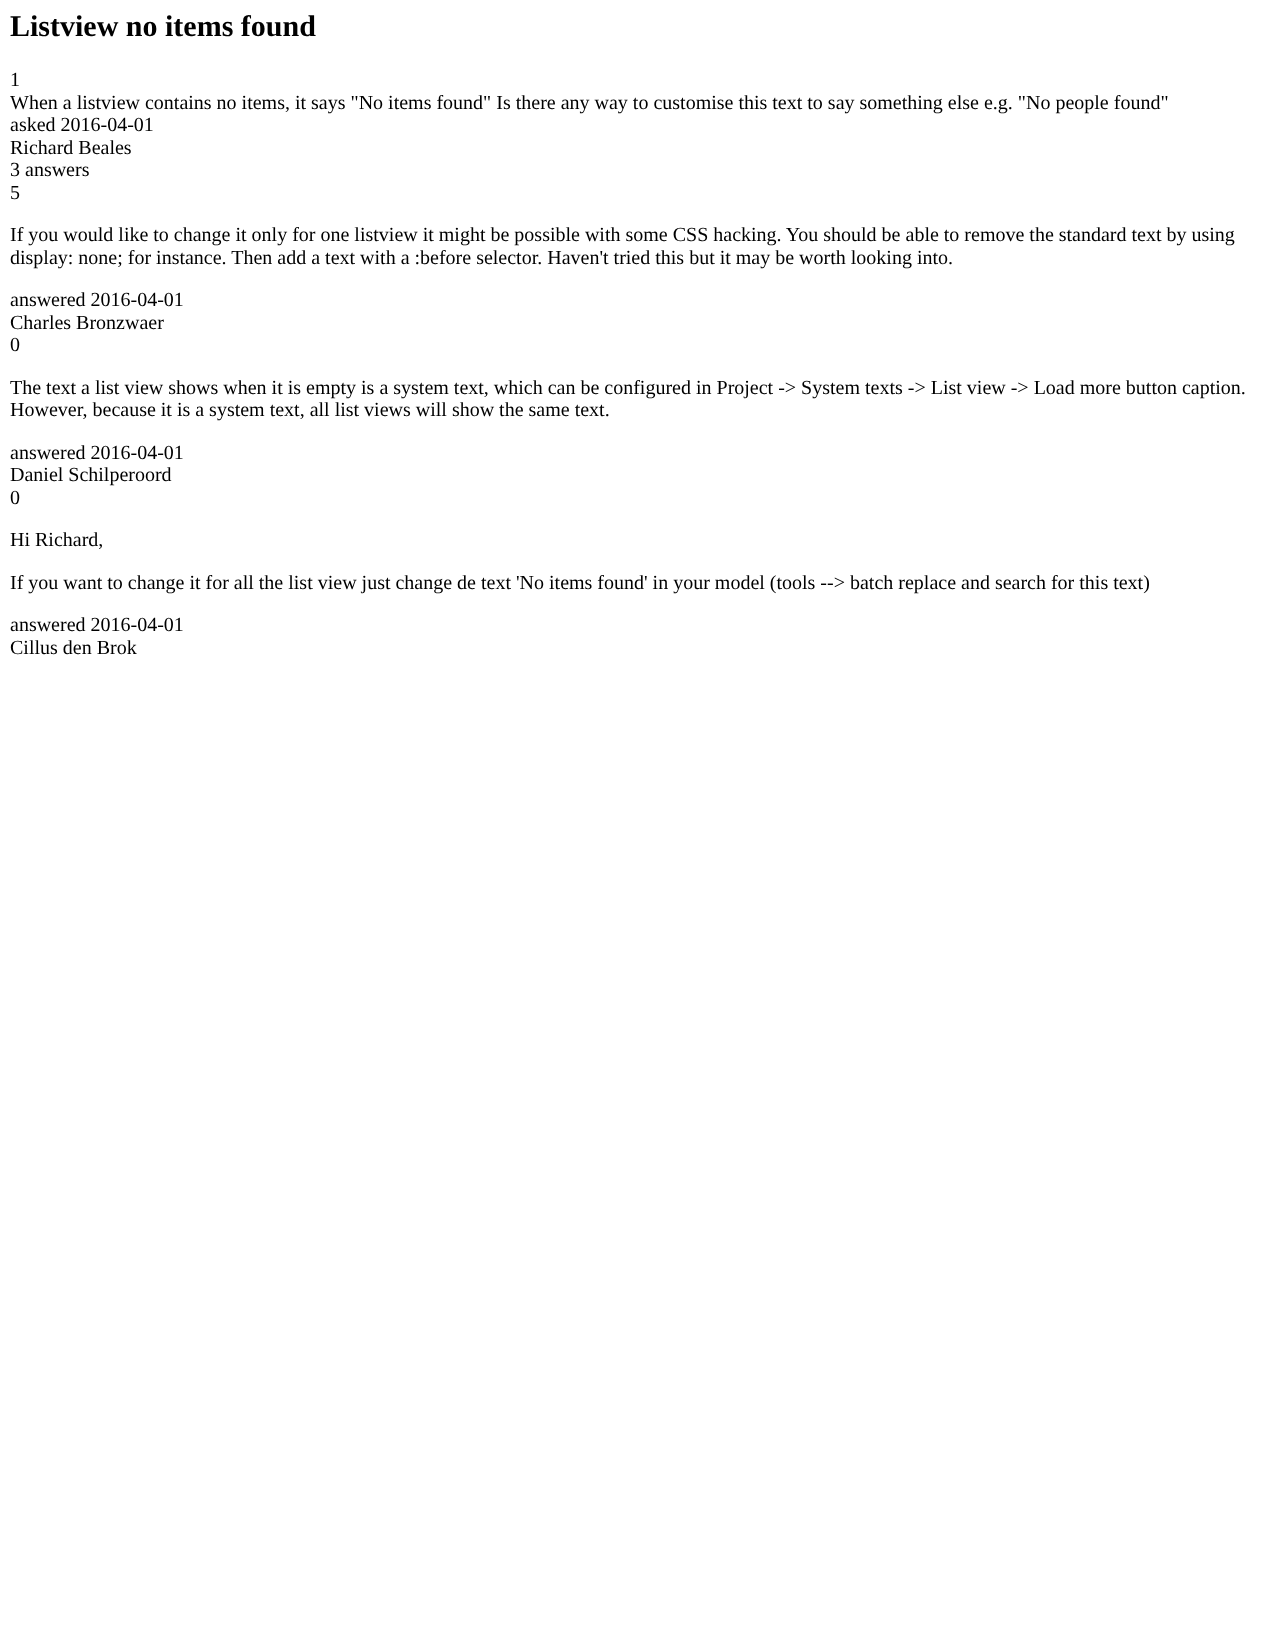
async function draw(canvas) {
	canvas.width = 1283;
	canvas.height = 1641;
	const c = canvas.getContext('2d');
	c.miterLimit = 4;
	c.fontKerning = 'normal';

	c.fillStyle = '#fff';
	c.fillRect(0, 0, 1283, 1641);
	c.font = 'bold 30px Liberation Serif';
	c.fillStyle = '#000';
	c.fillText('Listview no items found', 10, 36);
	c.font = '20px Liberation Serif';
	for (const [text, x, y] of [
		['1', 10, 86],
		['When a listview contains no items, it says "No items found" Is there any way to customise this text to say something else e.g. "No people found"', 10, 109],
		['asked 2016-04-01', 10, 131],
		['Richard Beales', 10, 154],
		['3 answers', 10, 176],
		['5', 10, 199],
		['If you would like to change it only for one listview it might be possible with some CSS hacking. You should be able to remove the standard text by using', 10, 241],
		['display: none; for instance. Then add a text with a :before selector. Haven\'t tried this but it may be worth looking into.', 10, 264],
		['answered 2016-04-01', 10, 306],
		['Charles Bronzwaer', 10, 329],
		['0', 10, 351],
		['The text a list view shows when it is empty is a system text, which can be configured in Project -> System texts -> List view -> Load more button caption.', 10, 394],
		['However, because it is a system text, all list views will show the same text.', 10, 416],
		['answered 2016-04-01', 10, 459],
		['Daniel Schilperoord', 10, 481],
		['0', 10, 504],
		['Hi Richard,', 10, 546],
		['If you want to change it for all the list view just change de text \'No items found\' in your model (tools --> batch replace and search for this text)', 10, 589],
		['answered 2016-04-01', 10, 631],
		['Cillus den Brok', 10, 654],
	]) {
		c.fillText(text, x, y);
	}
}

draw(document.querySelector('canvas'));
